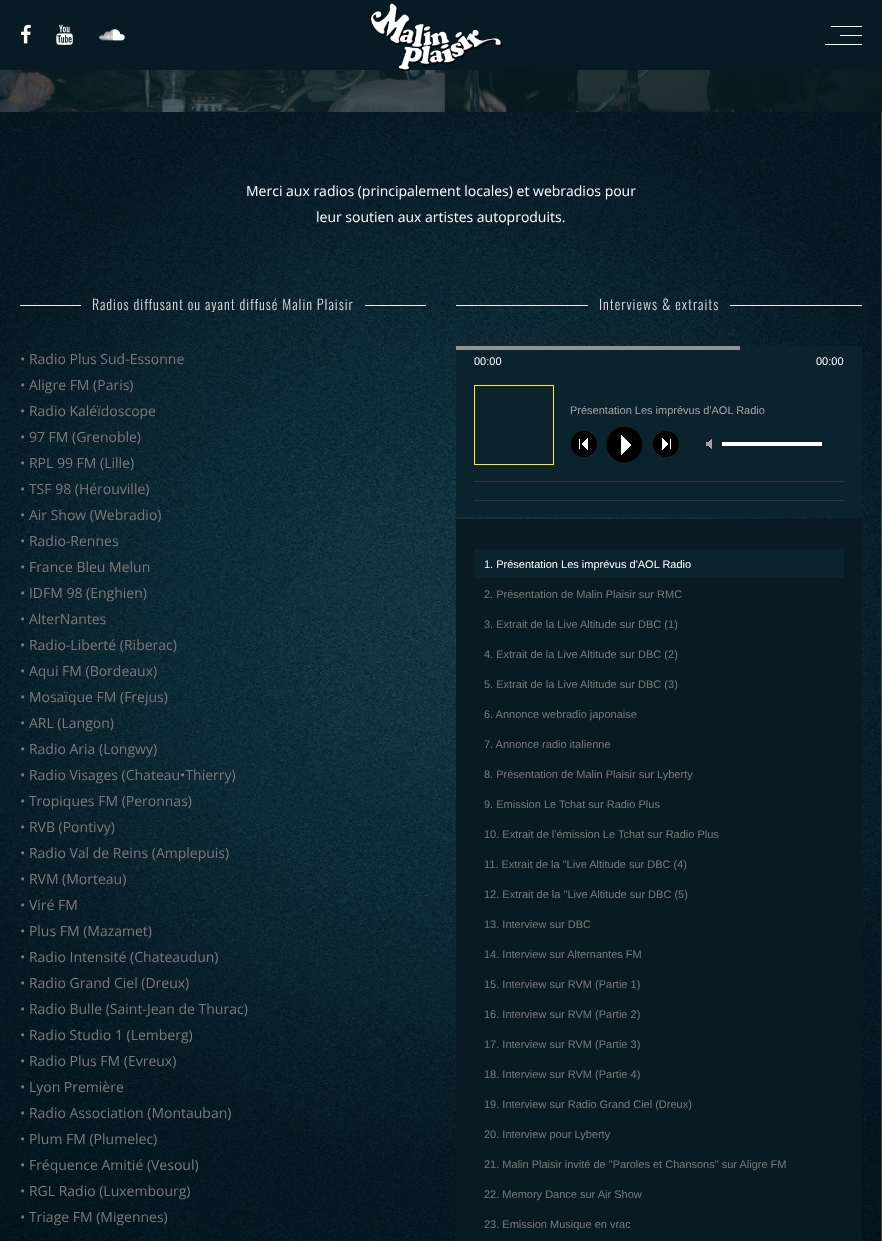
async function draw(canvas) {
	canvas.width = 882;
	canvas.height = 1241;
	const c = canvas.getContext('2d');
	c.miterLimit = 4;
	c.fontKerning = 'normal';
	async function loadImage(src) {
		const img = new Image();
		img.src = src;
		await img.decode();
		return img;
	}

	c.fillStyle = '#fff';
	c.fillRect(0, 0, 882, 1241);
	c.fillStyle = '#081a24';
	c.fillRect(0, 0, 882, 70);
	c.drawImage(await loadImage('img1.png'), 21, 24, 10, 20);
	c.drawImage(await loadImage('img2.png'), 56, 24, 17, 21);
	c.drawImage(await loadImage('img3.png'), 99, 29, 26, 12);
	c.drawImage(await loadImage('img5.png'), 0, 70, 882, 1171);
	c.drawImage(await loadImage('img6.png'), 0, 70, 882, 42);
	c.fillStyle = '#0a232cb0';
	c.fillRect(0, 70, 882, 42);
	c.drawImage(await loadImage('img4.png'), 371, 3, 131, 69);
	for (const [x, y, w, h, color] of [
		[831, 26, 31, 1, '#fff'],
		[840, 35, 22, 1, '#fff'],
		[825, 44, 37, 1, '#fff'],
	]) {
		c.fillStyle = color;
		c.fillRect(x, y, w, h);
	}
	c.font = '14px Open Sans';
	c.fillText('Merci aux radios (principalement locales) et webradios pour', 246, 196);
	c.fillText('leur soutien aux artistes autoproduits.', 316, 222);
	c.fillStyle = '#ebebeb';
	c.fillRect(20, 305, 61, 1);
	c.letterSpacing = '1px';
	c.font = '300 14px Oswald';
	c.fillStyle = '#dcdcdc';
	c.fillText('Radios diffusant ou ayant diffusé Malin Plaisir', 92, 310);
	c.fillStyle = '#ebebeb';
	c.fillRect(365, 305, 61, 1);
	c.letterSpacing = '0px';
	c.font = '14px Open Sans';
	c.fillStyle = '#7b7b7b';
	for (const [text, x, y] of [
		['• Radio Plus Sud-Essonne', 20, 364],
		['• Aligre FM (Paris)', 20, 390],
		['• Radio Kaléïdoscope', 20, 416],
		['• 97 FM (Grenoble)', 20, 442],
		['• RPL 99 FM (Lille)', 20, 468],
		['• TSF 98 (Hérouville)', 20, 494],
		['• Air Show (Webradio)', 20, 520],
		['• Radio-Rennes', 20, 546],
		['• France Bleu Melun', 20, 572],
		['• IDFM 98 (Enghien)', 20, 598],
		['• AlterNantes', 20, 624],
		['• Radio-Liberté (Riberac)', 20, 650],
		['• Aqui FM (Bordeaux)', 20, 676],
		['• Mosaïque FM (Frejus)', 20, 702],
		['• ARL (Langon)', 20, 728],
		['• Radio Aria (Longwy)', 20, 754],
		['• Radio Visages (Chateau•Thierry)', 20, 780],
		['• Tropiques FM (Peronnas)', 20, 806],
		['• RVB (Pontivy)', 20, 832],
		['• Radio Val de Reins (Amplepuis)', 20, 858],
		['• RVM (Morteau)', 20, 884],
		['• Viré FM', 20, 910],
		['• Plus FM (Mazamet)', 20, 936],
		['• Radio Intensité (Chateaudun)', 20, 962],
		['• Radio Grand Ciel (Dreux)', 20, 988],
		['• Radio Bulle (Saint-Jean de Thurac)', 20, 1014],
		['• Radio Studio 1 (Lemberg)', 20, 1040],
		['• Radio Plus FM (Evreux)', 20, 1066],
		['• Lyon Première', 20, 1092],
		['• Radio Association (Montauban)', 20, 1118],
		['• Plum FM (Plumelec)', 20, 1144],
		['• Fréquence Amitié (Vesoul)', 20, 1170],
		['• RGL Radio (Luxembourg)', 20, 1196],
		['• Triage FM (Migennes)', 20, 1222],
	]) {
		c.fillText(text, x, y);
	}
	c.fillStyle = '#ebebeb';
	c.fillRect(456, 305, 132, 1);
	c.letterSpacing = '1px';
	c.font = '300 14px Oswald';
	c.fillStyle = '#dcdcdc';
	c.fillText('Interviews & extraits', 599, 310);
	for (const [x, y, w, h, color] of [
		[730, 305, 132, 1, '#ebebeb'],
		[456, 346, 406, 171, '#0a232c'],
		[456, 346, 284, 4, '#929292'],
	]) {
		c.fillStyle = color;
		c.fillRect(x, y, w, h);
	}
	c.letterSpacing = '0px';
	c.font = '11px Liberation Sans';
	c.fillStyle = '#fff';
	c.fillText('00:00', 474, 365);
	c.fillText('00:00', 816, 365);
	c.drawImage(await loadImage('img7.png'), 570, 431, 27, 26);
	c.drawImage(await loadImage('img8.png'), 606, 426, 37, 37);
	c.drawImage(await loadImage('img9.png'), 652, 431, 27, 26);
	c.drawImage(await loadImage('img10.png'), 706, 439, 6, 10);
	c.fillRect(722, 442, 100, 4);
	c.strokeStyle = '#fff000';
	c.strokeRect(474.5, 385.5, 79, 79);
	c.fillStyle = '#a6a6a6';
	c.fillText('Présentation Les imprévus d\'AOL Radio', 570, 414);
	for (const [x, y, w, h, color] of [
		[474, 481, 370, 1, '#333'],
		[474, 500, 370, 1, '#333'],
		[456, 519, 406, 722, '#081b22'],
		[474, 549, 370, 29, '#0a232c'],
	]) {
		c.fillStyle = color;
		c.fillRect(x, y, w, h);
	}
	c.fillStyle = '#fff';
	c.fillText('1. Présentation Les imprévus d\'AOL Radio', 484, 568);
	c.fillStyle = '#7b7b7b';
	for (const [text, x, y] of [
		['2. Présentation de Malin Plaisir sur RMC', 484, 598],
		['3. Extrait de la Live Altitude sur DBC (1)', 484, 628],
		['4. Extrait de la Live Altitude sur DBC (2)', 484, 658],
		['5. Extrait de la Live Altitude sur DBC (3)', 484, 688],
		['6. Annonce webradio japonaise', 484, 718],
		['7. Annonce radio italienne', 484, 748],
		['8. Présentation de Malin Plaisir sur Lyberty', 484, 778],
		['9. Emission Le Tchat sur Radio Plus', 484, 808],
		['10. Extrait de l\'émission Le Tchat sur Radio Plus', 484, 838],
		['11. Extrait de la "Live Altitude sur DBC (4)', 484, 868],
		['12. Extrait de la "Live Altitude sur DBC (5)', 484, 898],
		['13. Interview sur DBC', 484, 928],
		['14. Interview sur Alternantes FM', 484, 958],
		['15. Interview sur RVM (Partie 1)', 484, 988],
		['16. Interview sur RVM (Partie 2)', 484, 1018],
		['17. Interview sur RVM (Partie 3)', 484, 1048],
		['18. Interview sur RVM (Partie 4)', 484, 1078],
		['19. Interview sur Radio Grand Ciel (Dreux)', 484, 1108],
		['20. Interview pour Lyberty', 484, 1138],
		['21. Malin Plaisir invité de "Paroles et Chansons" sur Aligre FM', 484, 1168],
		['22. Memory Dance sur Air Show', 484, 1198],
		['23. Emission Musique en vrac', 484, 1228],
	]) {
		c.fillText(text, x, y);
	}
}

draw(document.querySelector('canvas'));
